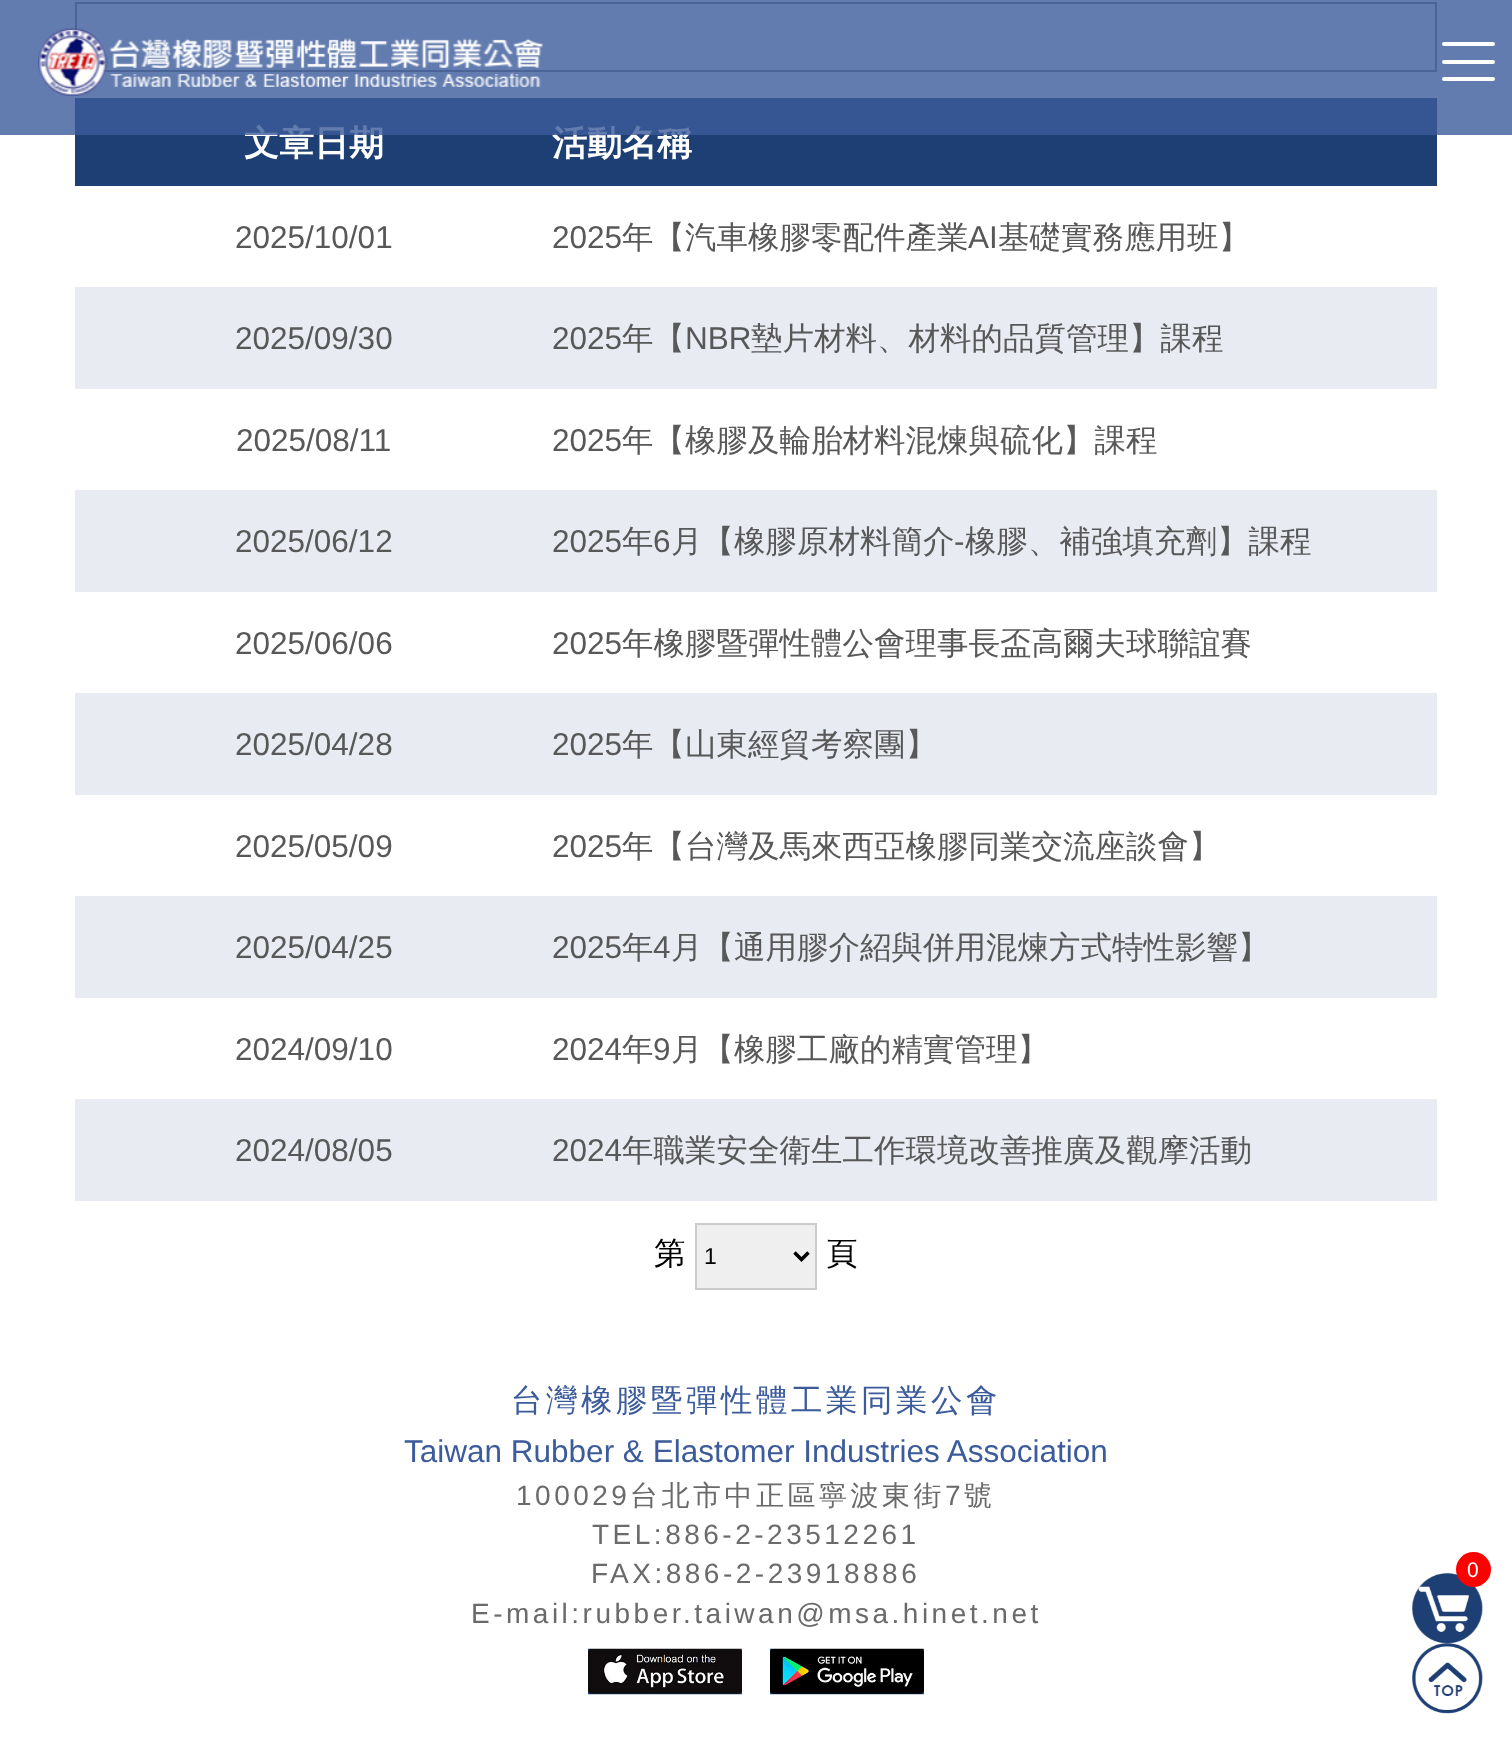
async function draw(canvas) {
	canvas.width = 1512;
	canvas.height = 1748;
	const c = canvas.getContext('2d');
	c.miterLimit = 4;
	c.fontKerning = 'normal';
	async function loadImage(src) {
		const img = new Image();
		img.src = src;
		await img.decode();
		return img;
	}

	c.fillStyle = '#fff';
	c.fillRect(0, 0, 1512, 1748);
	c.strokeStyle = '#888';
	c.lineWidth = 2;
	c.strokeRect(76, 3, 1360, 68);
	c.fillStyle = '#1e3f74';
	c.fillRect(75, 98, 1362, 88);
	c.font = 'bold 35px WenQuanYi Zen Hei';
	c.fillStyle = '#fff';
	c.fillText('文章日期', 244, 155);
	c.fillText('活動名稱', 552, 155);
	c.fillStyle = '#3c5b9bcc';
	c.fillRect(0, 0, 1512, 135);
	c.drawImage(await loadImage('img1.png'), 38, 28, 506, 68);
	c.fillStyle = '#fff';
	c.beginPath();
	c.roundRect(1442, 42, 53, 4, 2);
	c.fill();
	c.beginPath();
	c.roundRect(1442, 60, 53, 4, 2);
	c.fill();
	c.beginPath();
	c.roundRect(1442, 77, 53, 4, 2);
	c.fill();
	c.font = '31.5px Liberation Sans';
	c.fillStyle = '#585858';
	c.fillText('2025/10/01', 235, 248);
	c.fillText('2025', 552, 248);
	c.font = '500 31.5px WenQuanYi Zen Hei';
	c.fillText('年【汽車橡膠零配件產業', 622, 248);
	c.font = '31.5px Liberation Sans';
	c.fillText('AI', 968, 248);
	c.font = '500 31.5px WenQuanYi Zen Hei';
	c.fillText('基礎實務應用班】', 998, 248);
	c.fillStyle = '#e8ebf1';
	c.fillRect(75, 287, 1362, 102);
	c.font = '31.5px Liberation Sans';
	c.fillStyle = '#585858';
	c.fillText('2025/09/30', 235, 349);
	c.fillText('2025', 552, 349);
	c.font = '500 31.5px WenQuanYi Zen Hei';
	c.fillText('年【', 622, 349);
	c.font = '31.5px Liberation Sans';
	c.fillText('NBR', 685, 349);
	c.font = '500 31.5px WenQuanYi Zen Hei';
	c.fillText('墊片材料、材料的品質管理】課程', 751, 349);
	c.font = '31.5px Liberation Sans';
	c.fillText('2025/08/11', 236, 451);
	c.fillText('2025', 552, 451);
	c.font = '500 31.5px WenQuanYi Zen Hei';
	c.fillText('年【橡膠及輪胎材料混煉與硫化】課程', 622, 451);
	c.fillStyle = '#e8ebf1';
	c.fillRect(75, 490, 1362, 102);
	c.font = '31.5px Liberation Sans';
	c.fillStyle = '#585858';
	c.fillText('2025/06/12', 235, 552);
	c.fillText('2025', 552, 552);
	c.font = '500 31.5px WenQuanYi Zen Hei';
	c.fillText('年', 622, 552);
	c.font = '31.5px Liberation Sans';
	c.fillText('6', 653, 552);
	c.font = '500 31.5px WenQuanYi Zen Hei';
	c.fillText('月【橡膠原材料簡介', 671, 552);
	c.font = '31.5px Liberation Sans';
	c.fillText('-', 954, 552);
	c.font = '500 31.5px WenQuanYi Zen Hei';
	c.fillText('橡膠、補強填充劑】課程', 965, 552);
	c.font = '31.5px Liberation Sans';
	c.fillText('2025/06/06', 235, 654);
	c.fillText('2025', 552, 654);
	c.font = '500 31.5px WenQuanYi Zen Hei';
	c.fillText('年橡膠暨彈性體公會理事長盃高爾夫球聯誼賽', 622, 654);
	c.fillStyle = '#e8ebf1';
	c.fillRect(75, 693, 1362, 102);
	c.font = '31.5px Liberation Sans';
	c.fillStyle = '#585858';
	c.fillText('2025/04/28', 235, 755);
	c.fillText('2025', 552, 755);
	c.font = '500 31.5px WenQuanYi Zen Hei';
	c.fillText('年【山東經貿考察團】', 622, 755);
	c.font = '31.5px Liberation Sans';
	c.fillText('2025/05/09', 235, 857);
	c.fillText('2025', 552, 857);
	c.font = '500 31.5px WenQuanYi Zen Hei';
	c.fillText('年【台灣及馬來西亞橡膠同業交流座談會】', 622, 857);
	c.fillStyle = '#e8ebf1';
	c.fillRect(75, 896, 1362, 102);
	c.font = '31.5px Liberation Sans';
	c.fillStyle = '#585858';
	c.fillText('2025/04/25', 235, 958);
	c.fillText('2025', 552, 958);
	c.font = '500 31.5px WenQuanYi Zen Hei';
	c.fillText('年', 622, 958);
	c.font = '31.5px Liberation Sans';
	c.fillText('4', 653, 958);
	c.font = '500 31.5px WenQuanYi Zen Hei';
	c.fillText('月【通用膠介紹與併用混煉方式特性影響】', 671, 958);
	c.font = '31.5px Liberation Sans';
	c.fillText('2024/09/10', 235, 1060);
	c.fillText('2024', 552, 1060);
	c.font = '500 31.5px WenQuanYi Zen Hei';
	c.fillText('年', 622, 1060);
	c.font = '31.5px Liberation Sans';
	c.fillText('9', 653, 1060);
	c.font = '500 31.5px WenQuanYi Zen Hei';
	c.fillText('月【橡膠工廠的精實管理】', 671, 1060);
	c.fillStyle = '#e8ebf1';
	c.fillRect(75, 1099, 1362, 102);
	c.font = '31.5px Liberation Sans';
	c.fillStyle = '#585858';
	c.fillText('2024/08/05', 235, 1161);
	c.fillText('2024', 552, 1161);
	c.font = '500 31.5px WenQuanYi Zen Hei';
	c.fillText('年職業安全衛生工作環境改善推廣及觀摩活動', 622, 1161);
	c.fillStyle = '#000';
	c.fillText('第', 654, 1264);
	c.fillStyle = '#efefef';
	c.beginPath();
	c.rect(696, 1224, 120, 65);
	c.fill();
	c.strokeStyle = '#ccc';
	c.stroke();
	c.beginPath();
	c.moveTo(794.5, 1252.5);
	c.lineTo(801.5, 1259.5);
	c.lineTo(808.5, 1252.5);
	c.strokeStyle = '#000';
	c.lineWidth = 3.5;
	c.stroke();
	c.font = '23px Liberation Sans';
	c.fillStyle = '#000';
	c.fillText('1', 704, 1264);
	c.font = '500 31.5px WenQuanYi Zen Hei';
	c.fillText('頁', 826, 1264);
	c.letterSpacing = '3.5px';
	c.fillStyle = '#3c5b9b';
	c.fillText('台灣橡膠暨彈性體工業同業公會', 511, 1411);
	c.letterSpacing = '0px';
	c.font = '31.5px Liberation Sans';
	c.fillText('Taiwan Rubber & Elastomer Industries Association', 404, 1462);
	c.letterSpacing = '3.5px';
	c.font = '28px Liberation Sans';
	c.fillStyle = '#6a6a6a';
	c.fillText('100029', 516, 1505);
	c.font = '500 28px WenQuanYi Zen Hei';
	c.fillText('台北市中正區寧波東街', 630, 1505);
	c.font = '28px Liberation Sans';
	c.fillText('7', 945, 1505);
	c.font = '500 28px WenQuanYi Zen Hei';
	c.fillText('號', 964, 1505);
	c.font = '28px Liberation Sans';
	for (const [text, x, y] of [
		['TEL:886-2-23512261', 592, 1544],
		['FAX:886-2-23918886', 591, 1583],
		['E-mail:rubber.taiwan@msa.hinet.net', 471, 1623],
	]) {
		c.fillText(text, x, y);
	}
	c.drawImage(await loadImage('img2.png'), 588, 1648, 154, 47);
	c.drawImage(await loadImage('img3.png'), 770, 1648, 154, 47);
	c.drawImage(await loadImage('img4.png'), 1412, 1573, 71, 71);
	c.fillStyle = '#f00';
	c.beginPath();
	c.arc(1473.5, 1569.5, 17.5, 0, 2 * Math.PI);
	c.fill();
	c.letterSpacing = '0px';
	c.font = '21px Liberation Sans';
	c.fillStyle = '#fff';
	c.fillText('0', 1467, 1577);
	c.drawImage(await loadImage('img5.png'), 1412, 1643, 71, 71);
}

draw(document.querySelector('canvas'));
